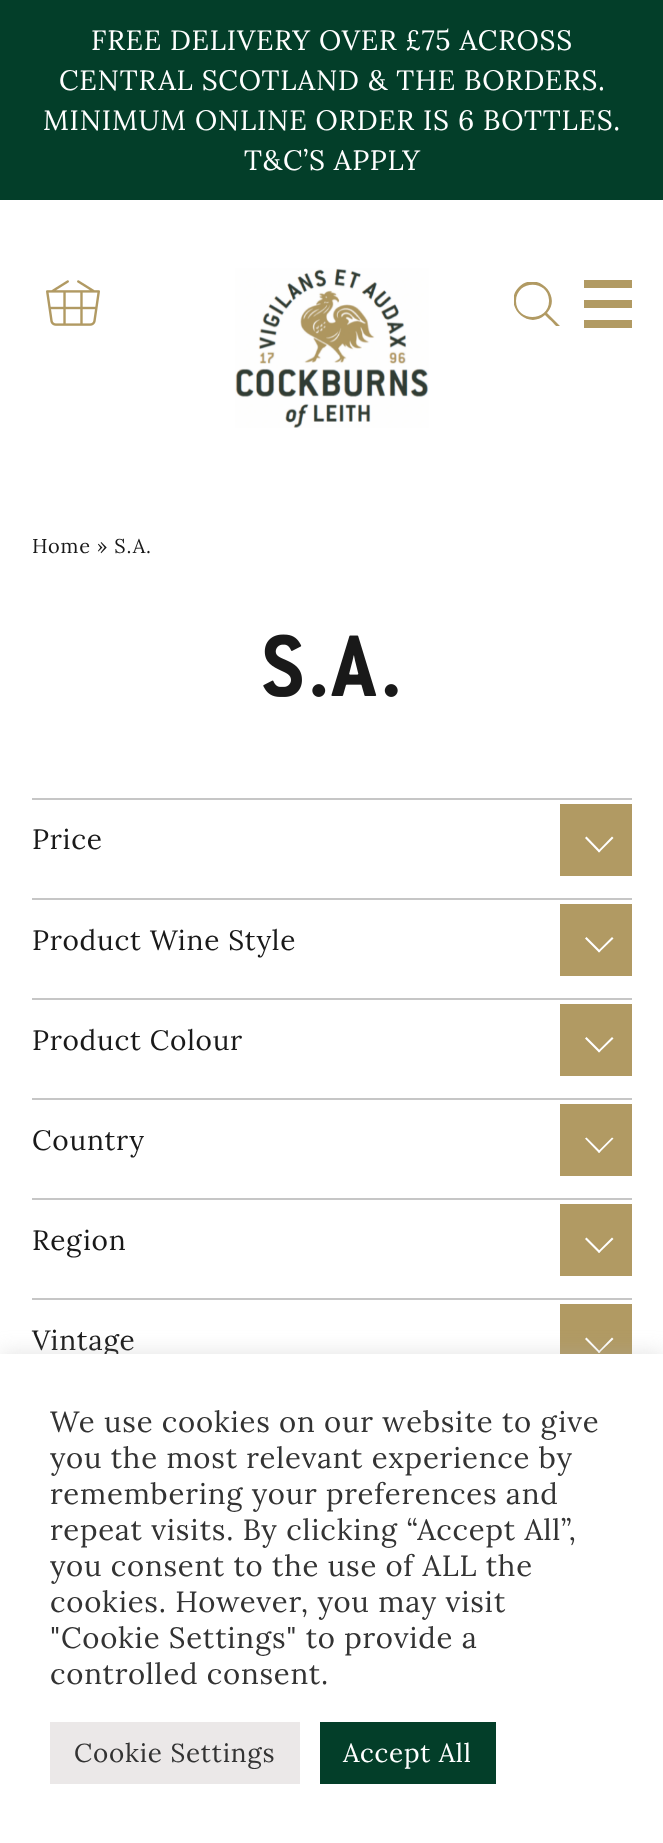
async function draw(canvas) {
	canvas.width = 663;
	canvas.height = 1843;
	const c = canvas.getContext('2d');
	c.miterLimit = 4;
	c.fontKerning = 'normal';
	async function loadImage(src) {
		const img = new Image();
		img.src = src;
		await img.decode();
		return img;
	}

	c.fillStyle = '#fff';
	c.fillRect(0, 0, 663, 1843);
	c.fillStyle = '#033e29';
	c.fillRect(0, 0, 663, 200);
	c.letterSpacing = '0.8px';
	c.font = '28px Lora';
	c.fillStyle = '#fff';
	for (const [text, x, y] of [
		['FREE DELIVERY OVER £75 ACROSS', 91, 50],
		['CENTRAL SCOTLAND & THE BORDERS.', 59, 90],
		['MINIMUM ONLINE ORDER IS 6 BOTTLES.', 43, 130],
		['T&C’S APPLY', 244, 170],
	]) {
		c.fillText(text, x, y);
	}
	c.drawImage(await loadImage('img1.png'), 235, 268, 194, 160);
	c.drawImage(await loadImage('img2.png'), 46, 280, 54, 46);
	c.save();
	c.beginPath();
	c.rect(514, 282, 46, 44);
	c.clip();
	c.fillStyle = '#b19a63';
	c.beginPath();
	c.moveTo(560, 326);
	c.lineTo(547, 313);
	c.bezierCurveTo(563, 295, 536, 270, 519, 287);
	c.bezierCurveTo(502, 304, 527, 331, 545, 315);
	c.lineTo(549, 319);
	c.bezierCurveTo(551, 320, 558, 329, 559, 328);
	c.bezierCurveTo(560, 327, 560, 327, 560, 326);
	c.moveTo(516, 301);
	c.bezierCurveTo(516, 280, 548, 279, 549, 300);
	c.bezierCurveTo(550, 322, 516, 323, 516, 301);
	c.fill();
	c.restore();
	for (const [x, y, w, h, color] of [
		[584, 280, 48, 8, '#b19a63'],
		[584, 300, 48, 8, '#b19a63'],
		[584, 320, 48, 8, '#b19a63'],
	]) {
		c.fillStyle = color;
		c.fillRect(x, y, w, h);
	}
	c.font = '20px Lora';
	c.fillStyle = '#191919';
	c.fillText('Home » S.A.', 32, 553);
	c.drawImage(await loadImage('img3.png'), 263, 634, 135, 63);
	c.fillStyle = '#c6c6c6';
	c.fillRect(32, 798, 600, 2);
	c.letterSpacing = '0.75px';
	c.font = '28px Lora';
	c.fillStyle = '#191919';
	c.fillText('Price', 32, 849);
	c.fillStyle = '#b19a63';
	c.fillRect(560, 804, 72, 72);
	c.fillStyle = '#fff';
	c.beginPath();
	c.moveTo(612, 836.5);
	c.lineTo(613.5, 838);
	c.lineTo(599, 852.5);
	c.lineTo(598, 851);
	c.closePath();
	c.fill();
	c.beginPath();
	c.moveTo(586.5, 836.5);
	c.lineTo(600.5, 851);
	c.lineTo(599, 852.5);
	c.lineTo(585, 838);
	c.closePath();
	c.fill();
	c.fillStyle = '#c6c6c6';
	c.fillRect(32, 898, 600, 2);
	c.fillStyle = '#191919';
	c.fillText('Product Wine Style', 32, 950);
	c.fillStyle = '#b19a63';
	c.fillRect(560, 904, 72, 72);
	c.fillStyle = '#fff';
	c.beginPath();
	c.moveTo(612, 937);
	c.lineTo(613.5, 938.5);
	c.lineTo(599, 952.5);
	c.lineTo(598, 951);
	c.closePath();
	c.fill();
	c.beginPath();
	c.moveTo(586.5, 937);
	c.lineTo(600.5, 951);
	c.lineTo(599, 952.5);
	c.lineTo(585, 938.5);
	c.closePath();
	c.fill();
	c.fillStyle = '#c6c6c6';
	c.fillRect(32, 998, 600, 2);
	c.fillStyle = '#191919';
	c.fillText('Product Colour', 32, 1050);
	c.fillStyle = '#b19a63';
	c.fillRect(560, 1004, 72, 72);
	c.fillStyle = '#fff';
	c.beginPath();
	c.moveTo(612, 1037);
	c.lineTo(613.5, 1038.5);
	c.lineTo(599, 1052.5);
	c.lineTo(598, 1051);
	c.closePath();
	c.fill();
	c.beginPath();
	c.moveTo(586.5, 1037);
	c.lineTo(600.5, 1051);
	c.lineTo(599, 1052.5);
	c.lineTo(585, 1038.5);
	c.closePath();
	c.fill();
	c.fillStyle = '#c6c6c6';
	c.fillRect(32, 1098, 600, 2);
	c.fillStyle = '#191919';
	c.fillText('Country', 32, 1150);
	c.fillStyle = '#b19a63';
	c.fillRect(560, 1104, 72, 72);
	c.fillStyle = '#fff';
	c.beginPath();
	c.moveTo(612, 1137.5);
	c.lineTo(613.5, 1138.5);
	c.lineTo(599, 1153);
	c.lineTo(598, 1151.5);
	c.closePath();
	c.fill();
	c.beginPath();
	c.moveTo(586.5, 1137.5);
	c.lineTo(600.5, 1151.5);
	c.lineTo(599, 1153);
	c.lineTo(585, 1138.5);
	c.closePath();
	c.fill();
	c.fillStyle = '#c6c6c6';
	c.fillRect(32, 1198, 600, 2);
	c.fillStyle = '#191919';
	c.fillText('Region', 32, 1250);
	c.fillStyle = '#b19a63';
	c.fillRect(560, 1204, 72, 72);
	c.fillStyle = '#fff';
	c.beginPath();
	c.moveTo(612, 1237.5);
	c.lineTo(613.5, 1239);
	c.lineTo(599, 1253);
	c.lineTo(598, 1251.5);
	c.closePath();
	c.fill();
	c.beginPath();
	c.moveTo(586.5, 1237.5);
	c.lineTo(600.5, 1251.5);
	c.lineTo(599, 1253);
	c.lineTo(585, 1239);
	c.closePath();
	c.fill();
	c.fillStyle = '#c6c6c6';
	c.fillRect(32, 1298, 600, 2);
	c.fillStyle = '#191919';
	c.fillText('Vintage', 32, 1350);
	c.fillStyle = '#b19a63';
	c.fillRect(560, 1304, 72, 50);
	c.fillStyle = '#fff';
	c.beginPath();
	c.moveTo(612, 1337.5);
	c.lineTo(613.5, 1339);
	c.lineTo(599, 1353);
	c.lineTo(598, 1352);
	c.closePath();
	c.fill();
	c.beginPath();
	c.moveTo(586.5, 1337.5);
	c.lineTo(600.5, 1352);
	c.lineTo(599, 1353);
	c.lineTo(585, 1339);
	c.closePath();
	c.fill();
	c.fillStyle = '#acabab4d';
	c.filter = 'blur(10px)';
	c.beginPath();
	c.rect(0, 1352, 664, 490);
	c.fill();
	c.filter = 'none';
	c.fillStyle = '#fff';
	c.fillRect(0, 1354, 663, 489);
	c.letterSpacing = '0.8px';
	c.font = '29.3px Lora';
	c.fillStyle = '#333';
	for (const [text, x, y] of [
		['We use cookies on our website to give', 50, 1432],
		['you the most relevant experience by', 50, 1468],
		['remembering your preferences and', 50, 1504],
		['repeat visits. By clicking “Accept All”,', 50, 1540],
		['you consent to the use of ALL the', 50, 1576],
		['cookies. However, you may visit', 50, 1612],
		['"Cookie Settings" to provide a', 50, 1648],
		['controlled consent.', 50, 1684],
	]) {
		c.fillText(text, x, y);
	}
	c.fillStyle = '#ebe8e8';
	c.fillRect(50, 1722, 250, 62);
	c.font = '26px Lora';
	c.fillStyle = '#333';
	c.fillText('Cookie Settings', 74, 1762);
	c.fillStyle = '#033e29';
	c.fillRect(320, 1722, 176, 62);
	c.fillStyle = '#fff';
	c.fillText('Accept All', 343, 1762);
}

draw(document.querySelector('canvas'));
